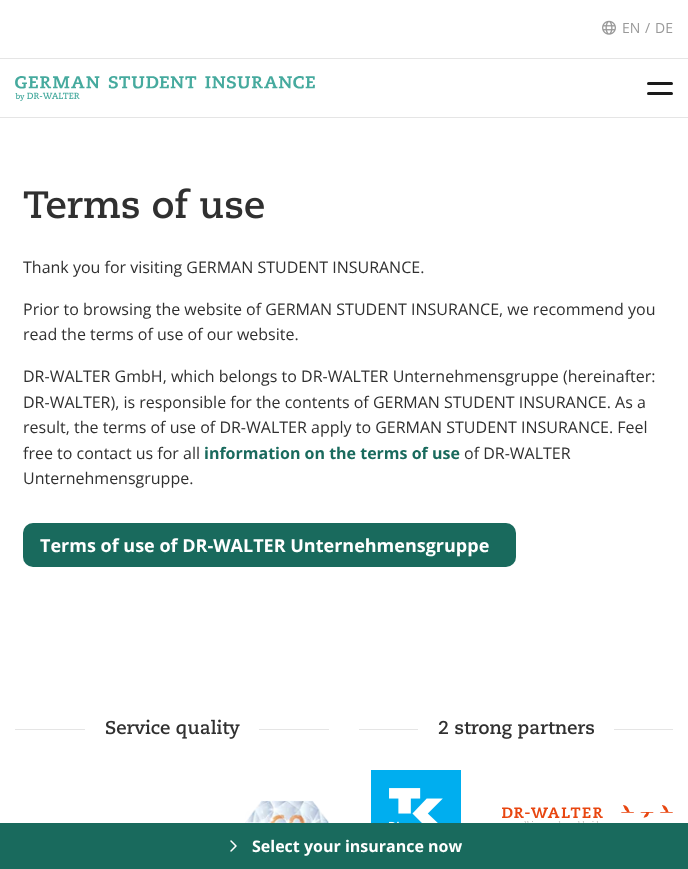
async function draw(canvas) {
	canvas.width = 688;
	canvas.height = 869;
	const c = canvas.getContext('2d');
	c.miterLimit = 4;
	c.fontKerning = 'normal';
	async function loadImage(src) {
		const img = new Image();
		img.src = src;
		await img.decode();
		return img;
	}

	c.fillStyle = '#fff';
	c.fillRect(0, 0, 688, 869);
	c.fillStyle = '#e5e5e5';
	c.fillRect(0, 58, 688, 1);
	c.drawImage(await loadImage('img1.png'), 602, 20, 14, 15);
	c.font = '14px Open Sans';
	c.fillStyle = '#999';
	for (const [text, x, y] of [
		['EN', 622, 33],
		['/', 645, 33],
		['DE', 655, 33],
	]) {
		c.fillText(text, x, y);
	}
	c.fillStyle = '#e5e5e5';
	c.fillRect(0, 117, 688, 1);
	c.drawImage(await loadImage('img2.png'), 15, 76, 300, 25);
	c.fillStyle = '#1a1a1a';
	c.beginPath();
	c.roundRect(647, 82, 26, 3, 1.5);
	c.fill();
	c.beginPath();
	c.roundRect(647, 92, 26, 3, 1.5);
	c.fill();
	c.drawImage(await loadImage('img3.png'), 23, 188, 241, 31);
	c.font = '16px Open Sans';
	c.fillStyle = '#303030';
	for (const [text, x, y] of [
		['Thank you for visiting GERMAN STUDENT INSURANCE.', 23, 273],
		['Prior to browsing the website of GERMAN STUDENT INSURANCE, we recommend you', 23, 315],
		['read the terms of use of our website.', 23, 340],
		['DR-WALTER GmbH, which belongs to DR-WALTER Unternehmensgruppe (hereinafter:', 23, 382],
		['DR-WALTER), is responsible for the contents of GERMAN STUDENT INSURANCE. As a', 23, 408],
		['result, the terms of use of DR-WALTER apply to GERMAN STUDENT INSURANCE. Feel', 23, 433],
		['free to contact us for all', 23, 459],
	]) {
		c.fillText(text, x, y);
	}
	c.font = 'bold 16px Open Sans';
	c.fillStyle = '#196a5d';
	c.fillText('information on the terms of use', 204, 459);
	c.font = '16px Open Sans';
	c.fillStyle = '#303030';
	c.fillText('of DR-WALTER', 464, 459);
	c.fillText('Unternehmensgruppe.', 23, 484);
	c.fillStyle = '#196a5d';
	c.beginPath();
	c.roundRect(23, 523, 493, 44, 10);
	c.fill();
	c.font = 'bold 18px Open Sans';
	c.fillStyle = '#fff';
	c.fillText('Terms of use of DR-WALTER Unternehmensgruppe', 40, 552);
	c.fillStyle = '#e5e5e5';
	c.fillRect(15, 729, 70, 1);
	c.drawImage(await loadImage('img4.png'), 105, 719, 135, 20);
	c.fillRect(259, 729, 70, 1);
	c.drawImage(await loadImage('img5.png'), 245, 800, 84, 23);
	c.fillRect(359, 729, 59, 1);
	c.drawImage(await loadImage('img6.png'), 438, 720, 156, 19);
	c.fillRect(614, 729, 59, 1);
	c.drawImage(await loadImage('img7.png'), 371, 770, 90, 53);
	c.drawImage(await loadImage('img8.png'), 502, 805, 171, 18);
	c.fillStyle = '#196a5d';
	c.fillRect(0, 823, 688, 46);
	c.drawImage(await loadImage('img9.png'), 230, 840, 7, 12);
	c.font = 'bold 16px Open Sans';
	c.fillStyle = '#fff';
	c.fillText('Select your insurance now', 252, 852);
}

draw(document.querySelector('canvas'));
